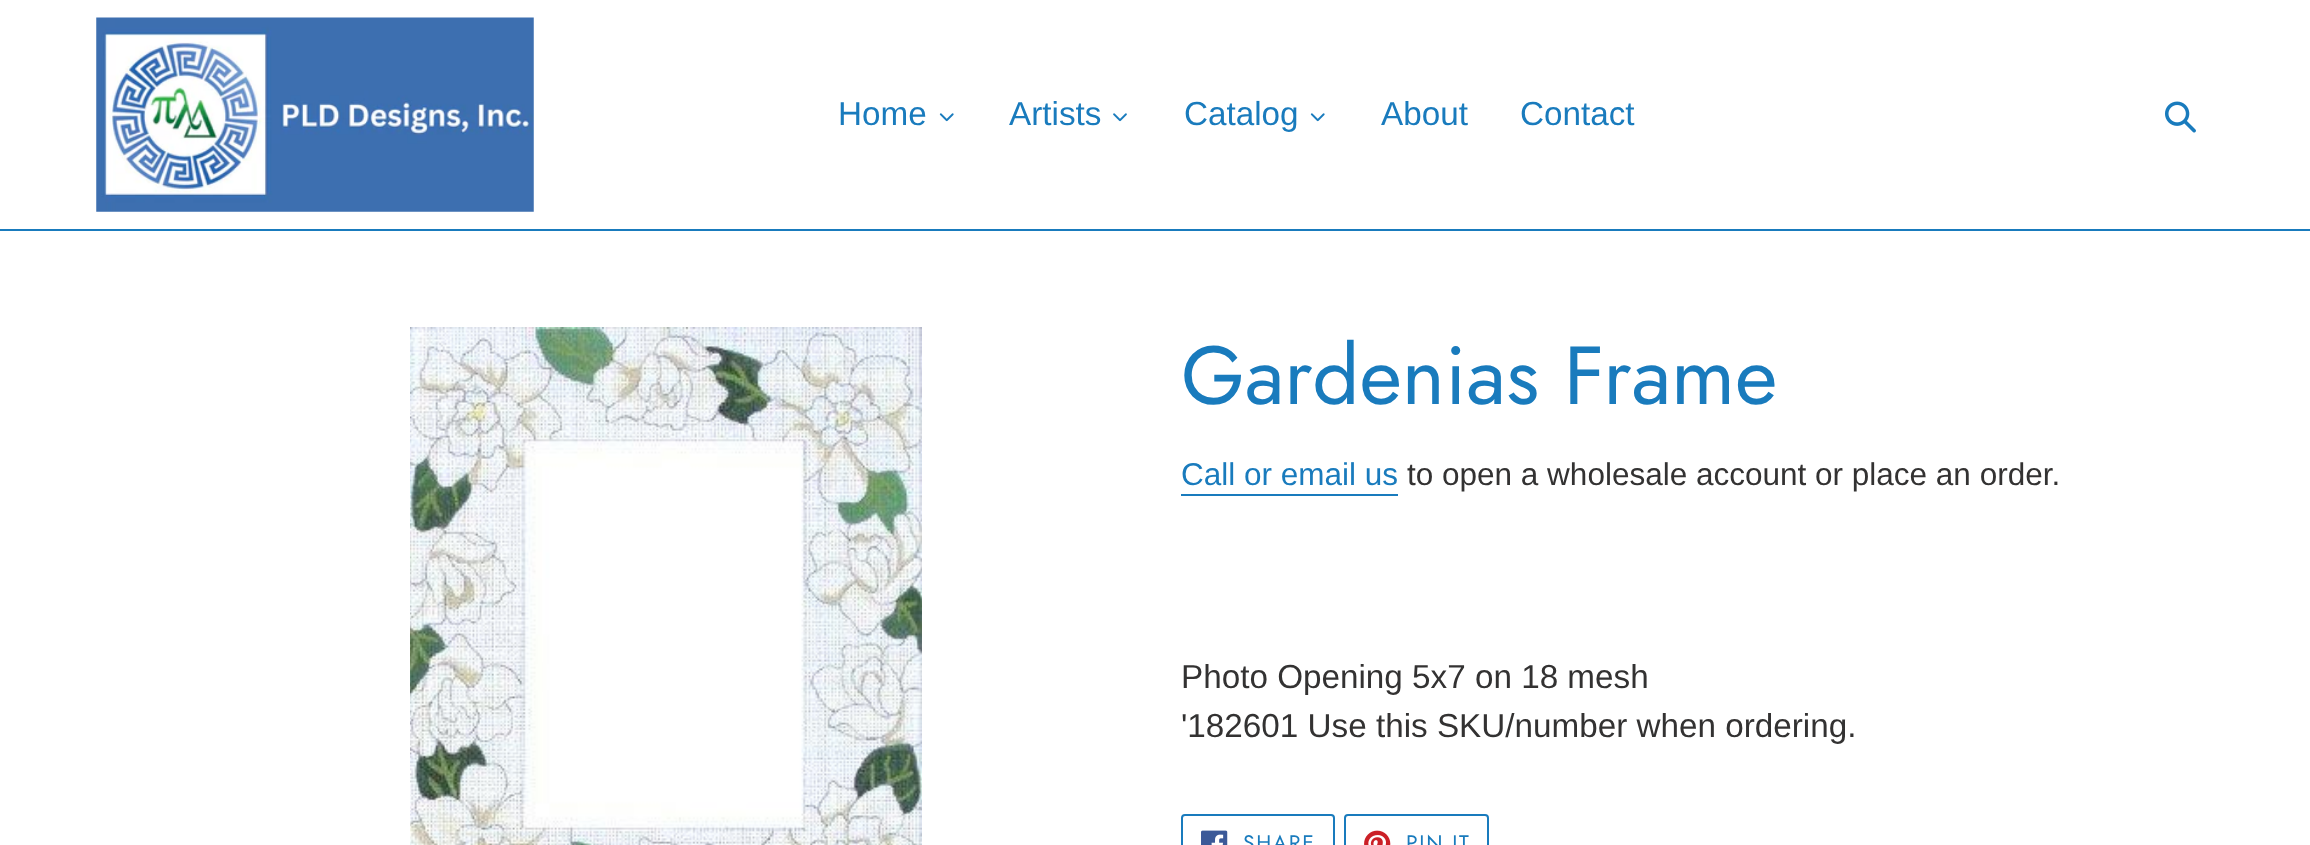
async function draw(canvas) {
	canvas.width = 2310;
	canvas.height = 845;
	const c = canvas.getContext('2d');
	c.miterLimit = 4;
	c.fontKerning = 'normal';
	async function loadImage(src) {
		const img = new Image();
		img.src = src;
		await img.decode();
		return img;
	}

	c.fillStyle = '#fff';
	c.fillRect(0, 0, 2310, 845);
	c.fillStyle = '#197bbd';
	c.fillRect(0, 229, 2310, 2);
	c.drawImage(await loadImage('img1.png'), 96, 17, 438, 195);
	c.font = '33.25px Liberation Sans';
	c.fillText('Home', 838, 125);
	c.drawImage(await loadImage('img2.png'), 939, 113, 15, 9);
	c.fillText('Artists', 1009, 125);
	c.drawImage(await loadImage('img3.png'), 1113, 113, 14, 9);
	c.fillText('Catalog', 1184, 125);
	c.drawImage(await loadImage('img2.png'), 1310, 113, 15, 9);
	c.fillText('About', 1381, 125);
	c.fillText('Contact', 1520, 125);
	c.drawImage(await loadImage('img4.png'), 2165, 101, 31, 32);
	c.drawImage(await loadImage('img5.png'), 410, 327, 512, 518);
	c.font = '82.25px Jost';
	c.fillText('Gardenias Frame', 1181, 404);
	c.font = '31.5px Liberation Sans';
	c.fillText('Call or email us', 1181, 485);
	c.fillRect(1181, 494, 217, 2);
	c.fillStyle = '#333232';
	c.fillText('to open a wholesale account or place an order.', 1407, 485);
	c.font = '33.25px Liberation Sans';
	c.fillText('Photo Opening 5x7 on 18 mesh', 1181, 688);
	c.fillText('\'182601 Use this SKU/number when ordering.', 1181, 737);
	c.beginPath();
	c.roundRect(1182, 815, 152, 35, 3);
	c.strokeStyle = '#197bbd';
	c.lineWidth = 2;
	c.stroke();
	c.drawImage(await loadImage('img6.png'), 1201, 830, 27, 15);
	c.letterSpacing = '1.75px';
	c.font = '21px Jost';
	c.fillStyle = '#197bbd';
	c.fillText('SHARE', 1243, 850);
	c.beginPath();
	c.roundRect(1345, 815, 143, 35, 3);
	c.stroke();
	c.drawImage(await loadImage('img7.png'), 1364, 830, 27, 15);
	c.fillText('PIN IT', 1406, 850);
}

draw(document.querySelector('canvas'));
